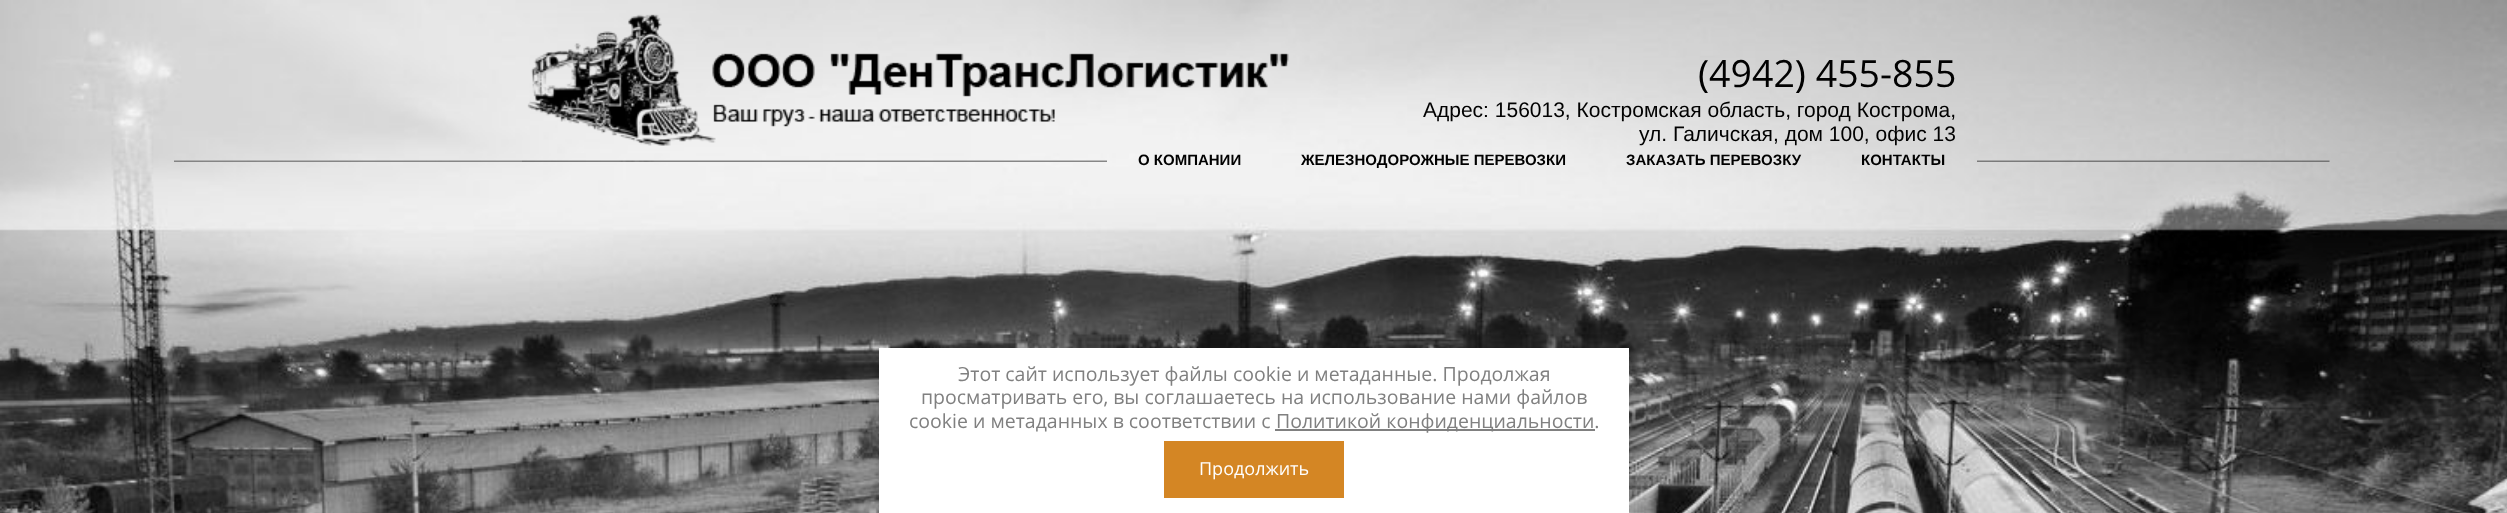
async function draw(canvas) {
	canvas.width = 2507;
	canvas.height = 513;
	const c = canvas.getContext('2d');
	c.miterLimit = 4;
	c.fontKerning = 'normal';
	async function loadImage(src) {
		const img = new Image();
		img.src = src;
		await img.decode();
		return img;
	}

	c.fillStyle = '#fff';
	c.fillRect(0, 0, 2507, 513);
	c.drawImage(await loadImage('img1.png'), 0, 0, 2507, 513);
	c.drawImage(await loadImage('img2.png'), 174, 160, 348, 2);
	c.drawImage(await loadImage('img3.png'), 527, 14, 762, 132);
	c.font = '37.5px Open Sans';
	c.fillStyle = '#010101';
	c.fillText('(4942) 455-855', 1698, 87);
	c.font = '21px Liberation Sans';
	c.fillText('Адрес: 156013, Костромская область, город Кострома,', 1423, 117);
	c.fillText('ул. Галичская, дом 100, офис 13', 1639, 141);
	c.drawImage(await loadImage('img4.png'), 522, 160, 585, 2);
	c.font = 'bold 15px Liberation Sans';
	for (const [text, x, y] of [
		['О КОМПАНИИ', 1138, 165],
		['ЖЕЛЕЗНОДОРОЖНЫЕ ПЕРЕВОЗКИ', 1301, 165],
		['ЗАКАЗАТЬ ПЕРЕВОЗКУ', 1626, 165],
		['КОНТАКТЫ', 1861, 165],
	]) {
		c.fillText(text, x, y);
	}
	c.drawImage(await loadImage('img5.png'), 1977, 160, 353, 2);
	c.fillStyle = '#0000003b';
	c.filter = 'blur(7.5px)';
	c.beginPath();
	c.rect(879, 350, 750, 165);
	c.fill();
	c.filter = 'none';
	c.fillStyle = '#fff';
	c.fillRect(879, 348, 750, 165);
	c.font = '19.5px Open Sans';
	c.fillStyle = '#808080';
	for (const [text, x, y] of [
		['Этот сайт использует файлы cookie и метаданные. Продолжая', 958, 381],
		['просматривать его, вы соглашаетесь на использование нами файлов', 921, 404],
		['cookie и метаданных в соответствии с', 909, 428],
	]) {
		c.fillText(text, x, y);
	}
	c.fillRect(1275, 429, 320, 2);
	c.fillText('Политикой конфиденциальности.', 1276, 428);
	c.fillStyle = '#d48624';
	c.fillRect(1164, 441, 180, 57);
	c.font = '18px Open Sans';
	c.fillStyle = '#fff';
	c.fillText('Продолжить', 1199, 475);
}

draw(document.querySelector('canvas'));
